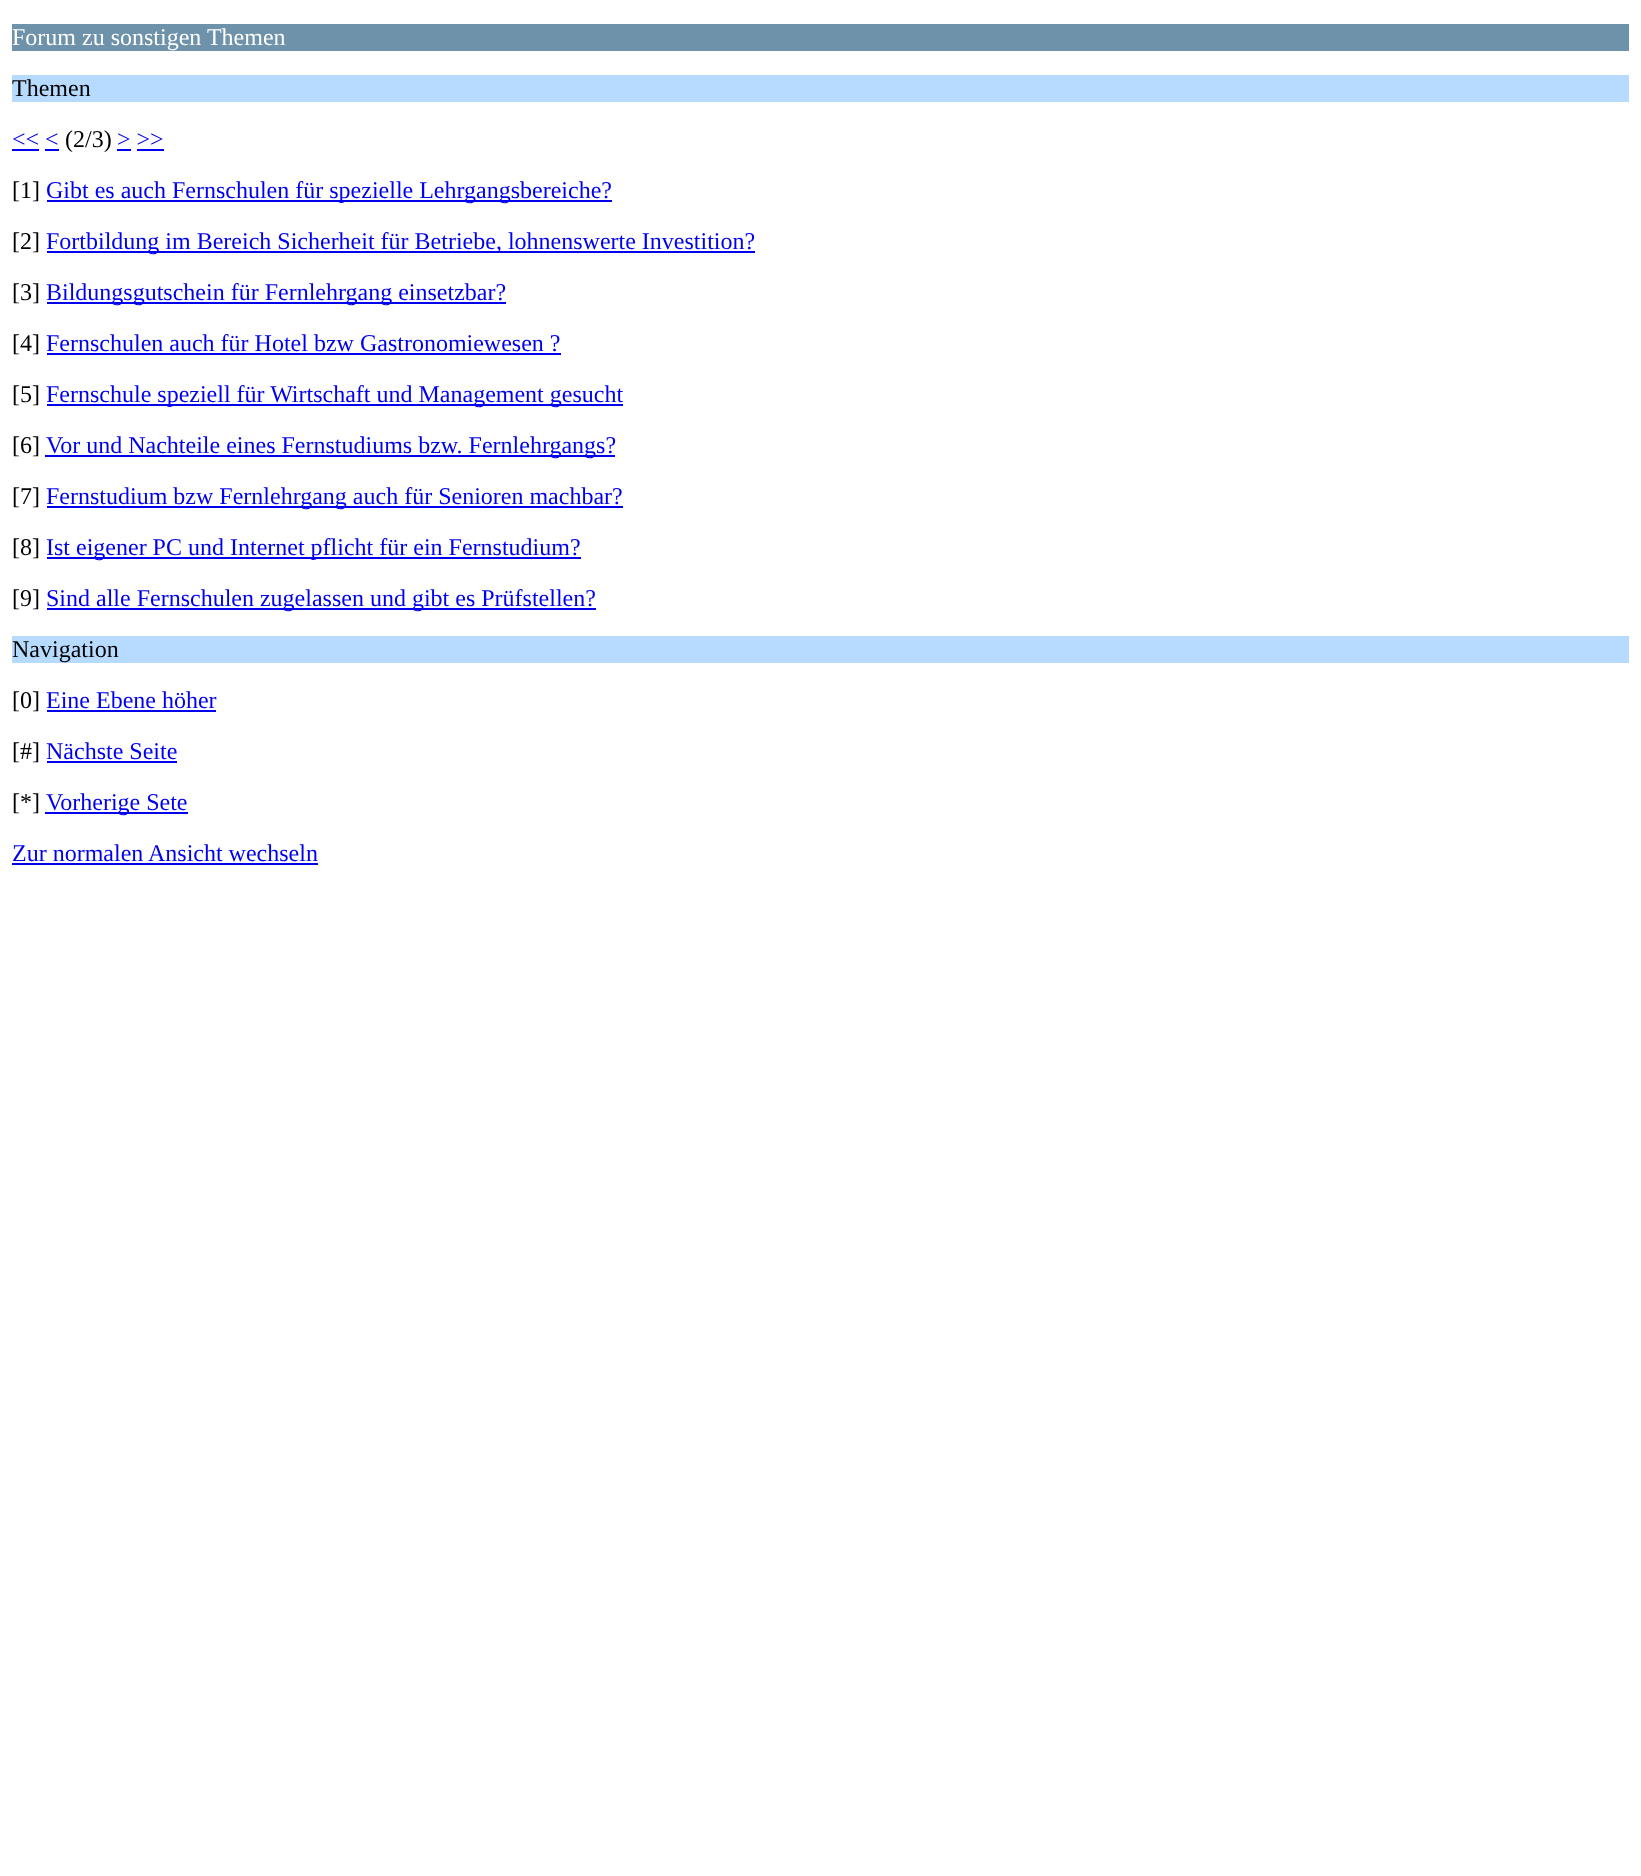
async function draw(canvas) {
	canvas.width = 1641;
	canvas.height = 1876;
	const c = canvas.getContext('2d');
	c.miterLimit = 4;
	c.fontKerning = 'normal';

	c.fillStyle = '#fff';
	c.fillRect(0, 0, 1641, 1876);
	c.fillStyle = '#6d92aa';
	c.fillRect(12, 24, 1617, 27);
	c.font = '24px Liberation Serif';
	c.fillStyle = '#fff';
	c.fillText('Forum zu sonstigen Themen', 12, 45);
	c.fillStyle = '#b6dbff';
	c.fillRect(12, 75, 1617, 27);
	c.fillStyle = '#000';
	c.fillText('Themen', 12, 96);
	c.fillStyle = '#00e';
	c.fillText('<< <', 12, 147);
	c.fillRect(12, 149, 27, 2);
	c.fillStyle = '#000';
	c.fillText('(2/3)', 65, 147);
	c.fillStyle = '#00e';
	c.fillText('> >>', 117, 147);
	for (const [x, y, w, h, color] of [
		[117, 149, 14, 2, '#00e'],
		[45, 149, 14, 2, '#00e'],
		[137, 149, 27, 2, '#00e'],
	]) {
		c.fillStyle = color;
		c.fillRect(x, y, w, h);
	}
	c.fillStyle = '#000';
	c.fillText('[1]', 12, 198);
	c.fillStyle = '#00e';
	c.fillRect(47, 200, 565, 2);
	c.fillText('Gibt es auch Fernschulen für spezielle Lehrgangsbereiche?', 46, 198);
	c.fillStyle = '#000';
	c.fillText('[2]', 12, 249);
	c.fillStyle = '#00e';
	c.fillRect(47, 251, 708, 2);
	c.fillText('Fortbildung im Bereich Sicherheit für Betriebe, lohnenswerte Investition?', 46, 249);
	c.fillStyle = '#000';
	c.fillText('[3]', 12, 300);
	c.fillStyle = '#00e';
	c.fillRect(47, 302, 459, 2);
	c.fillText('Bildungsgutschein für Fernlehrgang einsetzbar?', 46, 300);
	c.fillStyle = '#000';
	c.fillText('[4]', 12, 351);
	c.fillStyle = '#00e';
	c.fillText('Fernschulen auch für Hotel bzw Gastronomiewesen ?', 46, 351);
	c.fillRect(47, 353, 514, 2);
	c.fillStyle = '#000';
	c.fillText('[5]', 12, 402);
	c.fillStyle = '#00e';
	c.fillRect(47, 404, 576, 2);
	c.fillText('Fernschule speziell für Wirtschaft und Management gesucht', 46, 402);
	c.fillStyle = '#000';
	c.fillText('[6]', 12, 453);
	c.fillStyle = '#00e';
	c.fillRect(45, 455, 570, 2);
	c.fillText('Vor und Nachteile eines Fernstudiums bzw. Fernlehrgangs?', 46, 453);
	c.fillStyle = '#000';
	c.fillText('[7]', 12, 504);
	c.fillStyle = '#00e';
	c.fillRect(47, 506, 576, 2);
	c.fillText('Fernstudium bzw Fernlehrgang auch für Senioren machbar?', 46, 504);
	c.fillStyle = '#000';
	c.fillText('[8]', 12, 555);
	c.fillStyle = '#00e';
	c.fillRect(47, 557, 534, 2);
	c.fillText('Ist eigener PC und Internet pflicht für ein Fernstudium?', 46, 555);
	c.fillStyle = '#000';
	c.fillText('[9]', 12, 606);
	c.fillStyle = '#00e';
	c.fillRect(47, 608, 549, 2);
	c.fillText('Sind alle Fernschulen zugelassen und gibt es Prüfstellen?', 46, 606);
	c.fillStyle = '#b6dbff';
	c.fillRect(12, 636, 1617, 27);
	c.fillStyle = '#000';
	c.fillText('Navigation', 12, 657);
	c.fillText('[0]', 12, 708);
	c.fillStyle = '#00e';
	c.fillText('Eine Ebene höher', 46, 708);
	c.fillRect(47, 710, 169, 2);
	c.fillStyle = '#000';
	c.fillText('[#]', 12, 759);
	c.fillStyle = '#00e';
	c.fillText('Nächste Seite', 46, 759);
	c.fillRect(47, 761, 130, 2);
	c.fillStyle = '#000';
	c.fillText('[*]', 12, 810);
	c.fillStyle = '#00e';
	c.fillRect(45, 812, 143, 2);
	c.fillText('Vorherige Sete', 46, 810);
	c.fillText('Zur normalen Ansicht wechseln', 12, 861);
	c.fillRect(12, 863, 306, 2);
}

draw(document.querySelector('canvas'));
